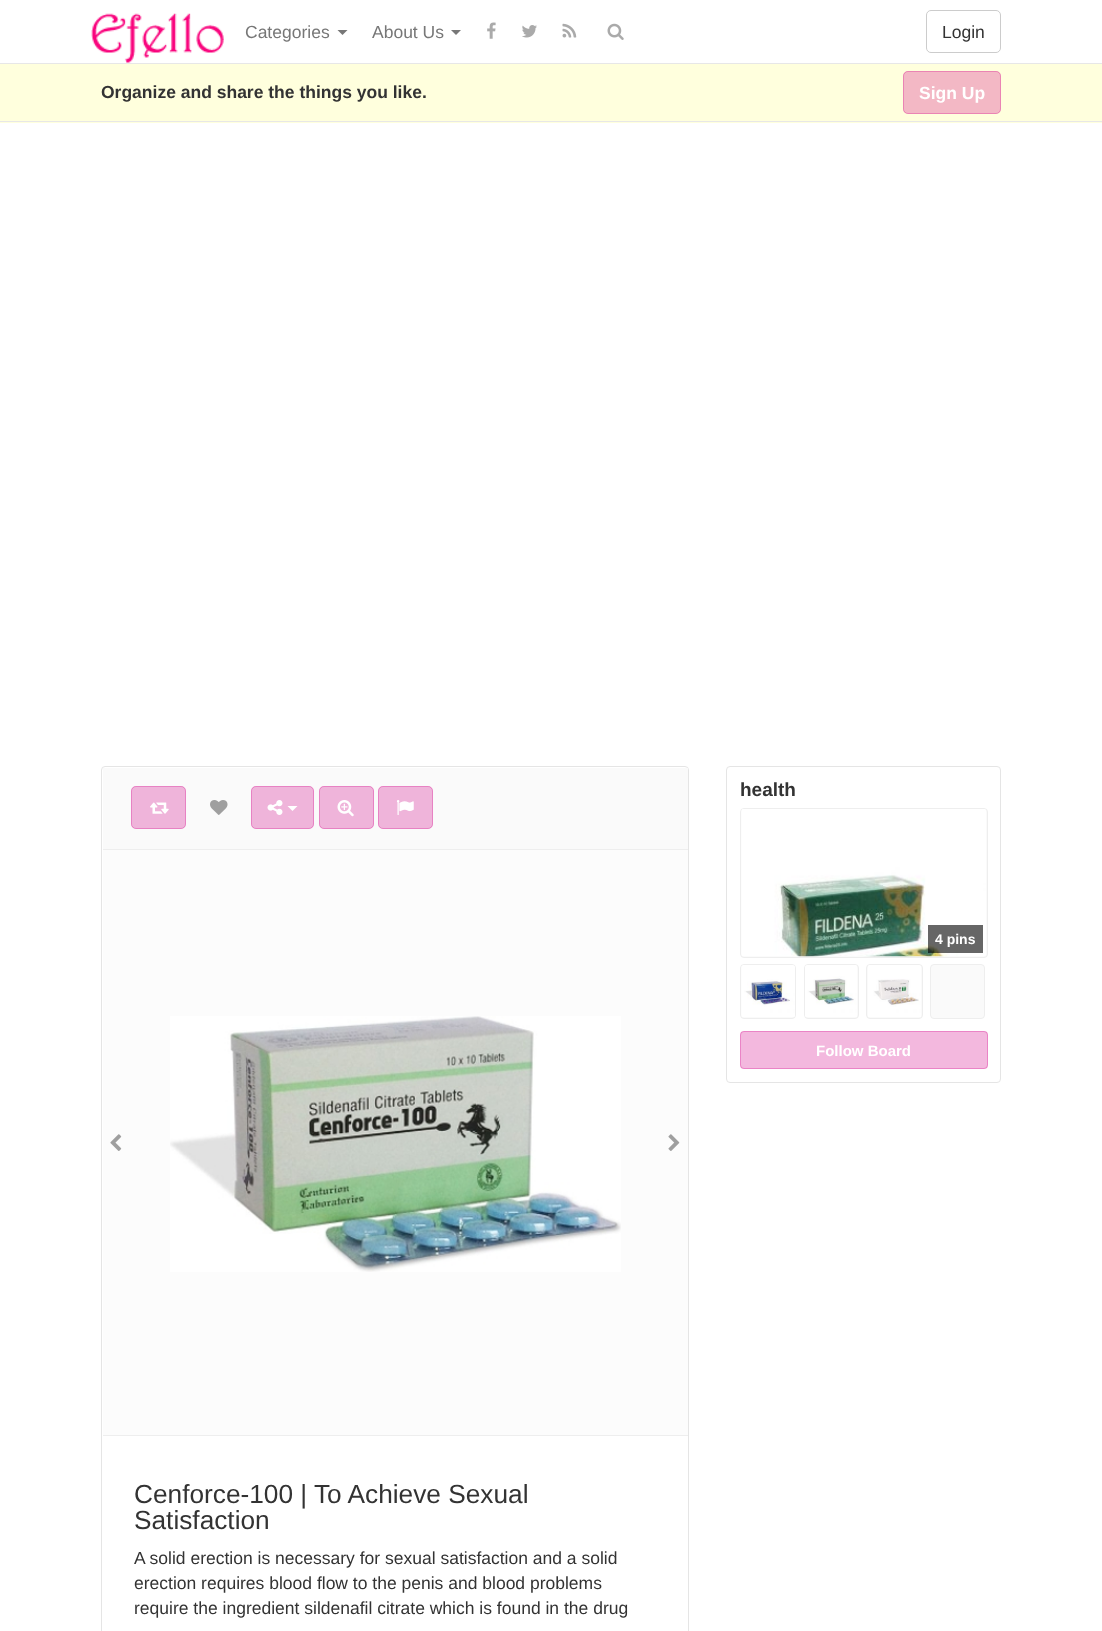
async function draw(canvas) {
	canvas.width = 1102;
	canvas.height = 1631;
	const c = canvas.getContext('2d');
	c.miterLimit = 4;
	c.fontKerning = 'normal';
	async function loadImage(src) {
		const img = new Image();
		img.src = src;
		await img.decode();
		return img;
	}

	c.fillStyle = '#fff';
	c.fillRect(0, 0, 1102, 1631);
	c.fillStyle = '#e7e7e7';
	c.fillRect(0, 63, 1102, 1);
	c.drawImage(await loadImage('img1.png'), 91, 13, 133, 50);
	c.font = '17.5px Liberation Sans';
	c.fillStyle = '#777';
	c.fillText('Categories', 245, 38);
	c.beginPath();
	c.moveTo(337.5, 30);
	c.lineTo(347.5, 30);
	c.lineTo(342.5, 35);
	c.closePath();
	c.fill();
	c.fillText('About Us', 372, 38);
	c.beginPath();
	c.moveTo(451, 30);
	c.lineTo(461, 30);
	c.lineTo(456, 35);
	c.closePath();
	c.fill();
	c.drawImage(await loadImage('img2.png'), 487, 22, 9, 17);
	c.drawImage(await loadImage('img3.png'), 522, 25, 15, 13);
	c.drawImage(await loadImage('img4.png'), 562, 23, 15, 15);
	c.drawImage(await loadImage('img5.png'), 607, 23, 17, 17);
	c.beginPath();
	c.roundRect(926.5, 10.5, 74, 42, 4.5);
	c.strokeStyle = '#ccc';
	c.stroke();
	c.fillStyle = '#333';
	c.fillText('Login', 942, 38);
	c.fillStyle = '#ffd';
	c.fillRect(0, 64, 1102, 59);
	c.fillStyle = '#e7e7e7';
	c.fillRect(0, 121, 1102, 1);
	c.font = 'bold 17.5px Liberation Sans';
	c.fillStyle = '#333';
	c.fillText('Organize and share the things you like.', 101, 98);
	c.fillStyle = '#f3b8c5';
	c.beginPath();
	c.roundRect(903, 71, 98, 43, 5);
	c.fill();
	c.beginPath();
	c.roundRect(903.5, 71.5, 97, 42, 4.5);
	c.strokeStyle = '#d4008947';
	c.stroke();
	c.fillStyle = '#fff';
	c.fillText('Sign Up', 919, 99);
	c.beginPath();
	c.roundRect(726.5, 766.5, 274, 316, 3.5);
	c.strokeStyle = '#e5e5e5';
	c.stroke();
	c.font = 'bold 19px Liberation Sans';
	c.fillStyle = '#333';
	c.fillText('health', 740, 796);
	c.fillStyle = '#fafafa';
	c.beginPath();
	c.roundRect(740.5, 808.5, 247, 149, 3.5);
	c.fill();
	c.strokeStyle = '#eee';
	c.stroke();
	c.drawImage(await loadImage('img6.png'), 741, 809, 245, 148);
	c.fillStyle = '#00000099';
	c.fillRect(928, 925, 55, 28);
	c.font = 'bold 14px Liberation Sans';
	c.fillStyle = '#fff';
	c.fillText('4 pins', 935, 944);
	c.fillStyle = '#fafafa';
	c.beginPath();
	c.roundRect(740.5, 964.5, 55, 54, 3.5);
	c.fill();
	c.stroke();
	c.drawImage(await loadImage('img7.png'), 741, 965, 54, 52);
	c.beginPath();
	c.roundRect(804.5, 964.5, 54, 54, 3.5);
	c.fill();
	c.stroke();
	c.drawImage(await loadImage('img8.png'), 805, 965, 52, 52);
	c.beginPath();
	c.roundRect(866.5, 964.5, 56, 54, 3.5);
	c.fill();
	c.stroke();
	c.drawImage(await loadImage('img9.png'), 868, 965, 53, 52);
	c.beginPath();
	c.roundRect(930.5, 964.5, 54, 54, 3.5);
	c.fill();
	c.stroke();
	c.fillStyle = '#f3b8de';
	c.beginPath();
	c.roundRect(740, 1031, 248, 38, 4);
	c.fill();
	c.beginPath();
	c.roundRect(740.5, 1031.5, 247, 37, 3.5);
	c.strokeStyle = '#d4008947';
	c.stroke();
	c.font = 'bold 15px Liberation Sans';
	c.fillStyle = '#fff';
	c.fillText('Follow Board', 816, 1056);
	c.beginPath();
	c.roundRect(101.5, 766.5, 587, 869, 3.5);
	c.strokeStyle = '#e5e5e5';
	c.stroke();
	c.fillStyle = '#fafafa';
	c.fillRect(103, 768, 585, 81);
	c.fillStyle = '#eee';
	c.fillRect(103, 849, 585, 1);
	c.fillStyle = '#efb4da';
	c.beginPath();
	c.roundRect(131, 786, 55, 43, 5);
	c.fill();
	c.beginPath();
	c.roundRect(131.5, 786.5, 54, 42, 4.5);
	c.strokeStyle = '#d4008947';
	c.stroke();
	c.drawImage(await loadImage('img10.png'), 150, 802, 19, 12);
	c.drawImage(await loadImage('img11.png'), 210, 800, 18, 15);
	c.beginPath();
	c.roundRect(251, 786, 63, 43, 5);
	c.fill();
	c.beginPath();
	c.roundRect(251.5, 786.5, 62, 42, 4.5);
	c.stroke();
	c.drawImage(await loadImage('img12.png'), 267, 800, 16, 15);
	c.fillStyle = '#fff';
	c.beginPath();
	c.moveTo(287.5, 806);
	c.lineTo(297.5, 806);
	c.lineTo(292.5, 811);
	c.closePath();
	c.fill();
	c.fillStyle = '#efb4da';
	c.beginPath();
	c.roundRect(319, 786, 55, 43, 5);
	c.fill();
	c.beginPath();
	c.roundRect(319.5, 786.5, 54, 42, 4.5);
	c.stroke();
	c.drawImage(await loadImage('img13.png'), 337, 800, 17, 17);
	c.beginPath();
	c.roundRect(378, 786, 55, 43, 5);
	c.fill();
	c.beginPath();
	c.roundRect(378.5, 786.5, 54, 42, 4.5);
	c.stroke();
	c.drawImage(await loadImage('img14.png'), 396, 800, 18, 15);
	c.fillStyle = '#fcfcfc';
	c.fillRect(103, 850, 585, 585);
	c.fillStyle = '#eee';
	c.fillRect(103, 1435, 585, 1);
	c.drawImage(await loadImage('img15.png'), 110, 1134, 12, 17);
	c.drawImage(await loadImage('img16.png'), 170, 1016, 451, 256);
	c.drawImage(await loadImage('img17.png'), 668, 1134, 12, 17);
	c.font = '26.25px Liberation Sans';
	c.fillStyle = '#333';
	c.fillText('Cenforce-100 | To Achieve Sexual', 134, 1503);
	c.fillText('Satisfaction', 134, 1529);
	c.font = '17.5px Liberation Sans';
	for (const [text, x, y] of [
		['A solid erection is necessary for sexual satisfaction and a solid', 134, 1564],
		['erection requires blood flow to the penis and blood problems', 134, 1589],
		['require the ingredient sildenafil citrate which is found in the drug', 134, 1614],
	]) {
		c.fillText(text, x, y);
	}
}

draw(document.querySelector('canvas'));
